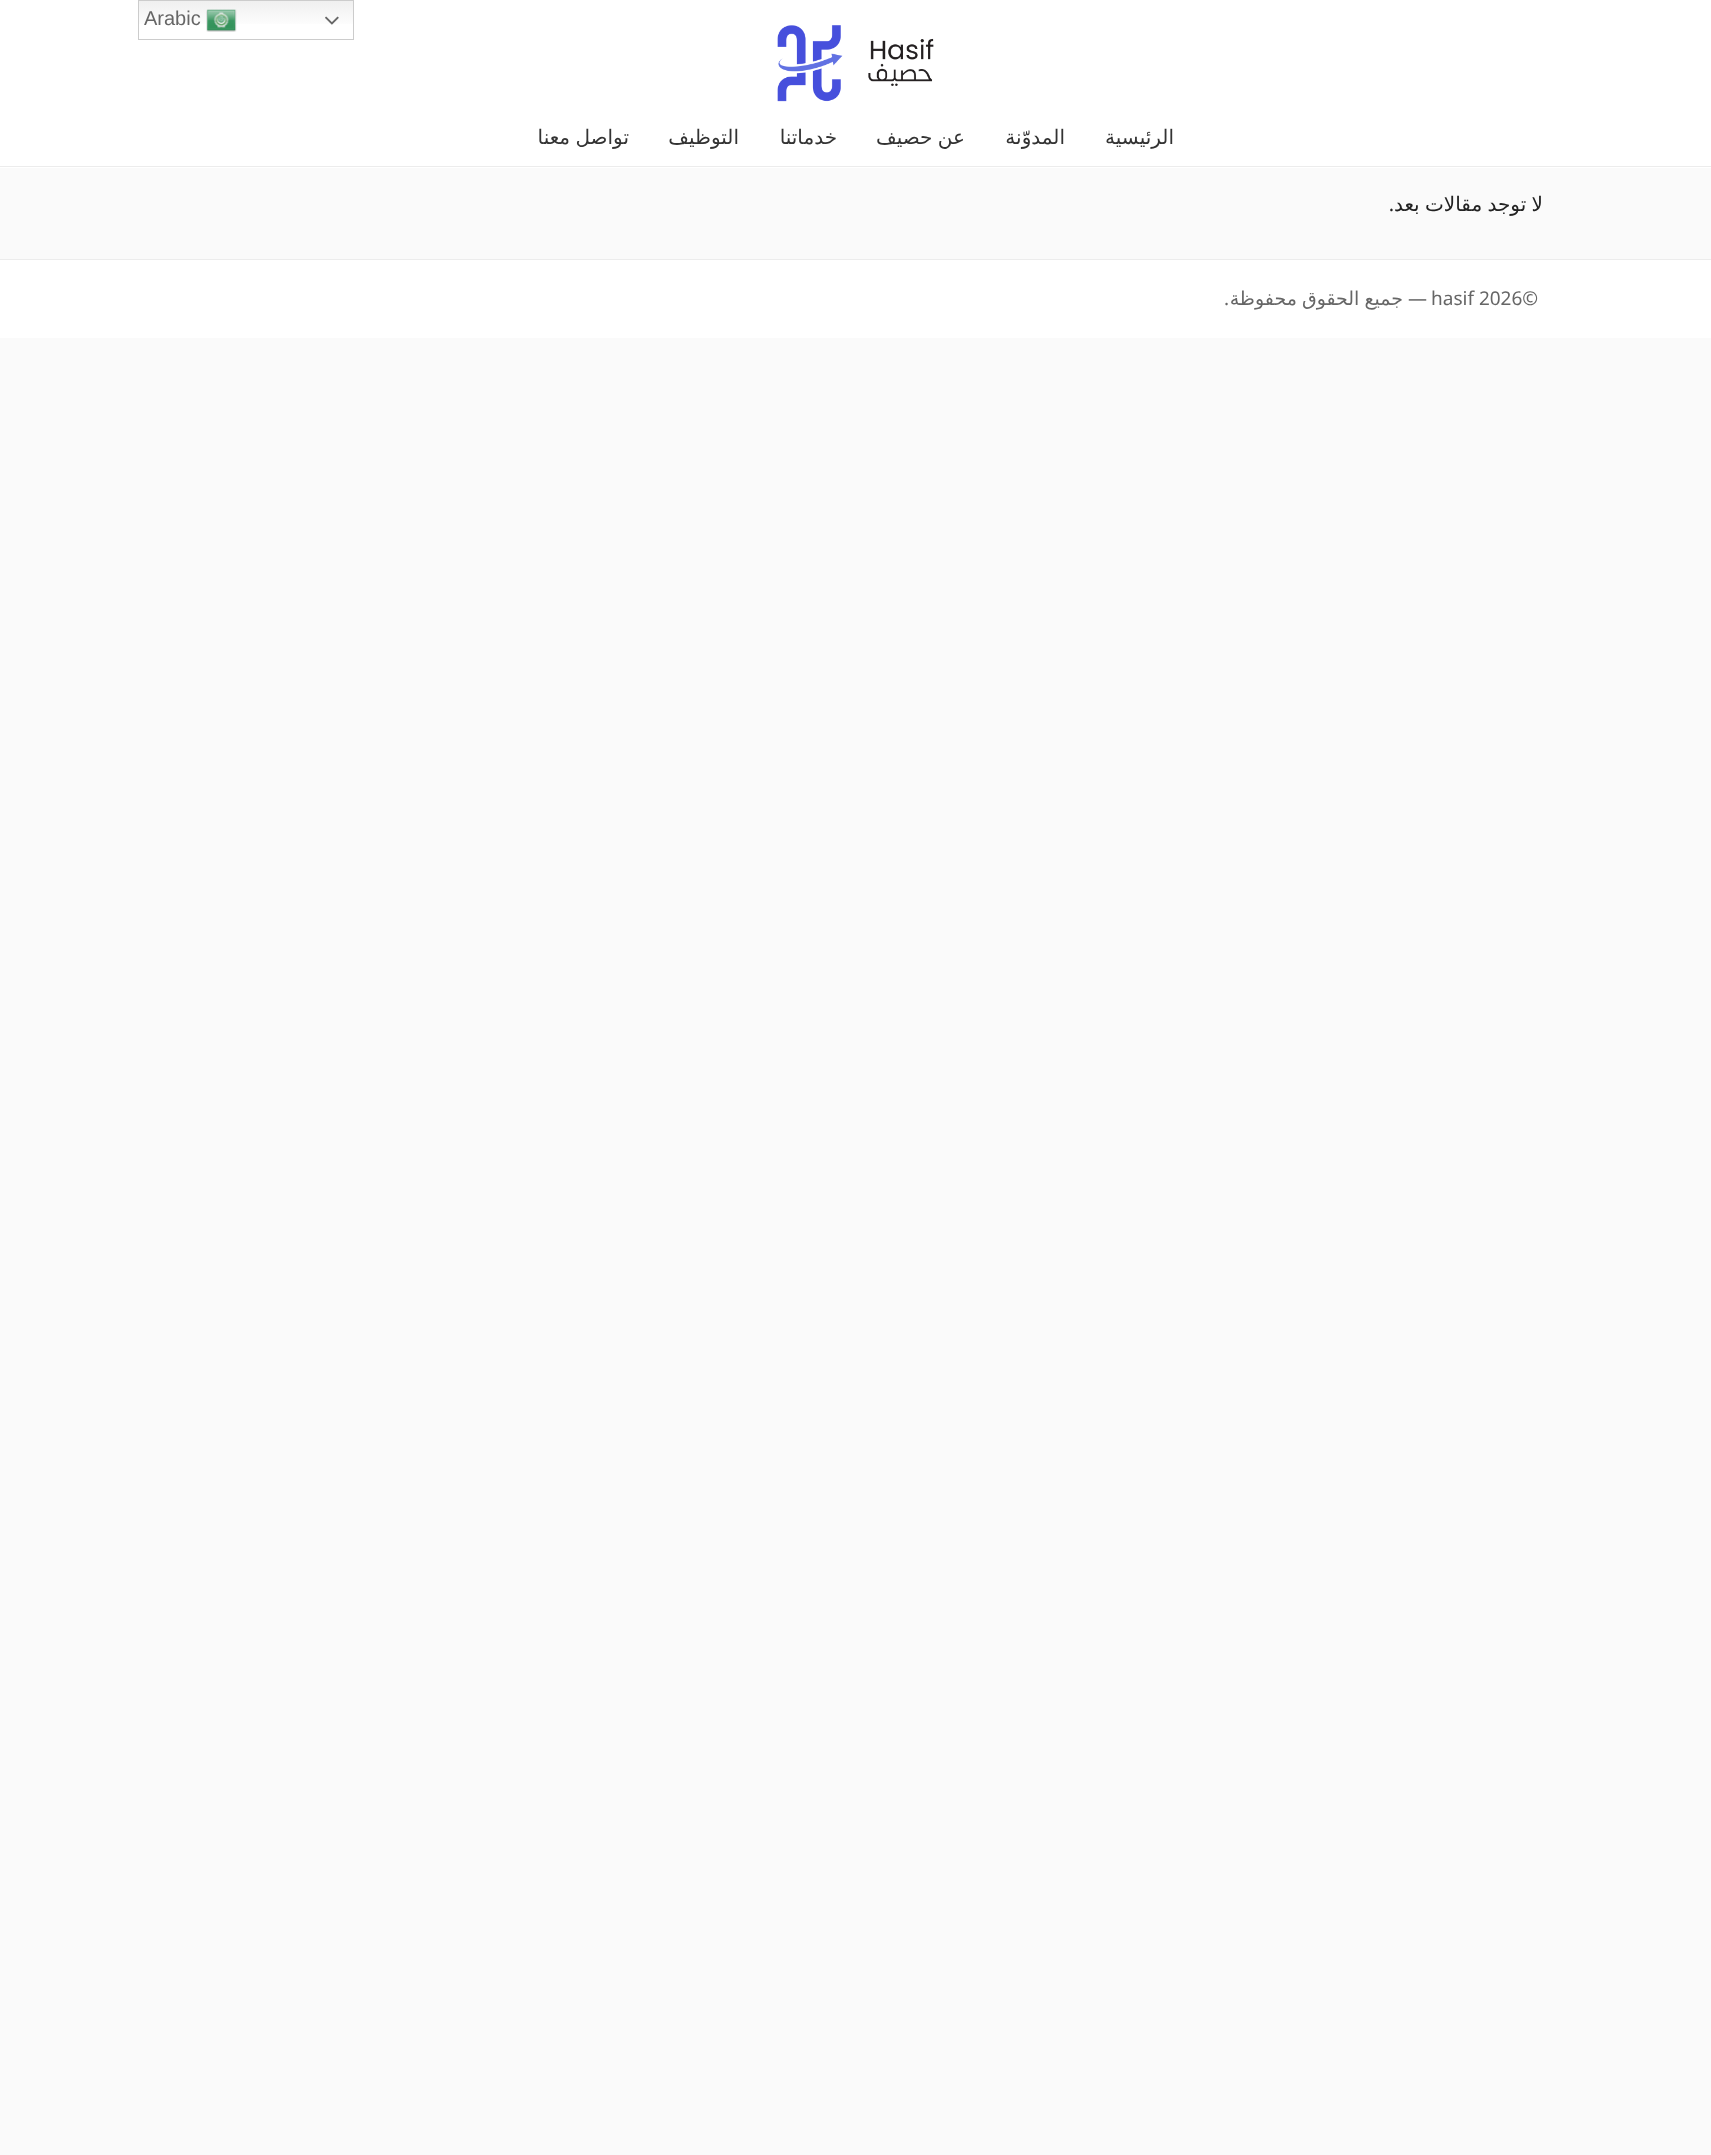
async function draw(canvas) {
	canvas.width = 1711;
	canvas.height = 2155;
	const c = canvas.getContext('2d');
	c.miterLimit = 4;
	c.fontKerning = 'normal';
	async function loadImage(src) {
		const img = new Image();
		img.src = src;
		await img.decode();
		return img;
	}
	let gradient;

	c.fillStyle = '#fafafa';
	c.fillRect(0, 0, 1711, 2155);
	c.fillStyle = '#fff';
	c.fillRect(0, 0, 1711, 168);
	gradient = c.createLinearGradient(246, 0, 246, 40);
	gradient.addColorStop(0, '#efefef');
	gradient.addColorStop(0.7, '#fff');
	c.fillStyle = gradient;
	c.fillRect(139, 1, 214, 23);
	c.strokeStyle = '#ccc';
	c.strokeRect(138.5, 0.5, 215, 39);
	c.drawImage(await loadImage('img1.png'), 325, 16, 14, 9);
	c.drawImage(await loadImage('img2.png'), 206, 9, 31, 23);
	c.font = '20px Liberation Sans';
	c.fillStyle = '#666';
	c.fillText('Arabic', 144, 25);
	c.fillStyle = '#ececec';
	c.fillRect(0, 166, 1711, 1);
	c.drawImage(await loadImage('img3.png'), 777, 25, 157, 77);
	c.direction = 'rtl';
	c.font = '20px DejaVu Sans';
	c.fillStyle = '#333';
	c.fillText('الرئيسية', 1174, 144);
	c.fillText('المدوّنة', 1065, 144);
	c.wordSpacing = '-1px';
	c.fillText('عن حصيف', 965, 144);
	c.wordSpacing = '0px';
	c.fillText('خدماتنا', 837, 144);
	c.fillText('التوظيف', 739, 144);
	c.wordSpacing = '-1px';
	c.fillText('تواصل معنا', 629, 144);
	c.fillStyle = '#222';
	c.fillText('لا توجد مقالات بعد', 1543, 211);
	c.wordSpacing = '0px';
	c.font = '20px Noto Sans';
	c.fillText('.', 1394, 211);
	c.fillStyle = '#fff';
	c.fillRect(0, 260, 1711, 78);
	c.fillStyle = '#ececec';
	c.fillRect(0, 259, 1711, 1);
	c.direction = 'ltr';
	c.font = '19px Noto Sans';
	c.fillStyle = '#666';
	c.fillText('hasif 2026©', 1431, 305);
	c.direction = 'rtl';
	c.fillText('—', 1427, 305);
	c.wordSpacing = '-1px';
	c.font = '19px DejaVu Sans';
	c.fillText('جميع الحقوق محفوظة', 1403, 305);
	c.wordSpacing = '0px';
	c.font = '19px Noto Sans';
	c.fillText('.', 1229, 305);
}

draw(document.querySelector('canvas'));
